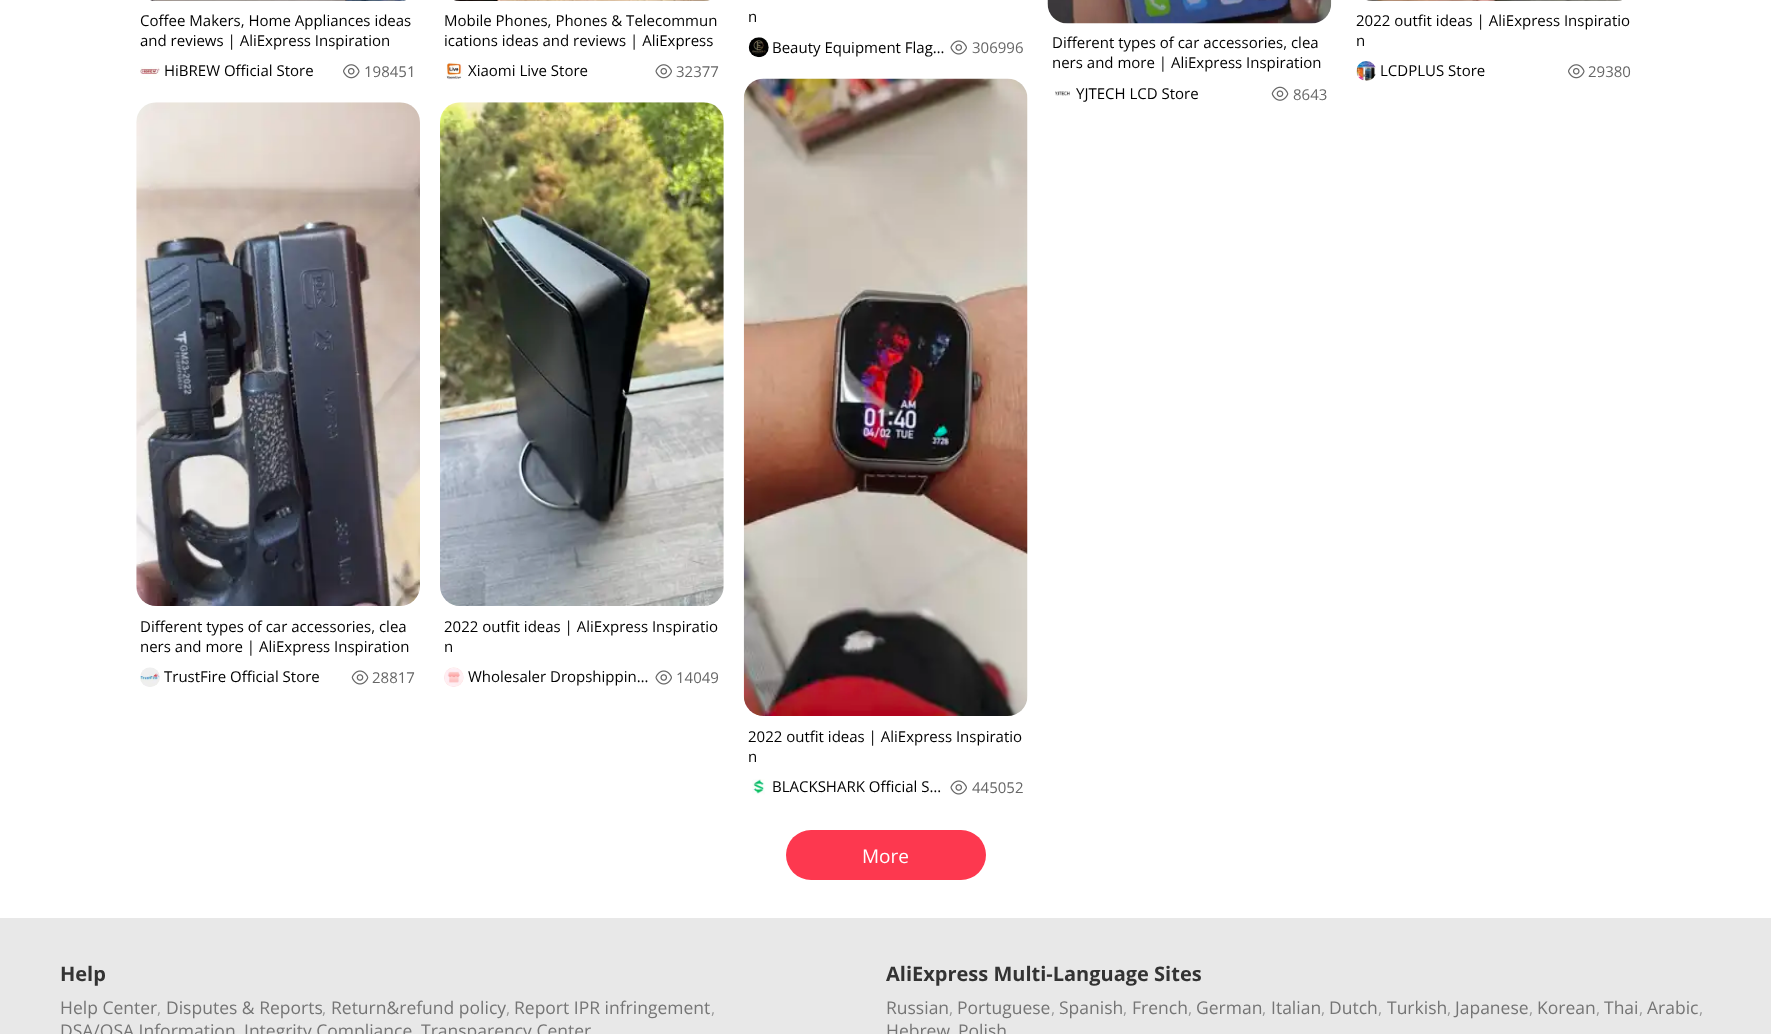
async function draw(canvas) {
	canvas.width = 1771;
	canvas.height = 1034;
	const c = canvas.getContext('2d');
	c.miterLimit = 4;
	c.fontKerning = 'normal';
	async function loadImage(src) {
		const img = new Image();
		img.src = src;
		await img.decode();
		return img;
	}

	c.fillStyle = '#fff';
	c.fillRect(0, 0, 1771, 1034);
	c.drawImage(await loadImage('img1.png'), 150, 0, 256, 1);
	c.font = '15px Open Sans';
	c.fillStyle = '#000';
	c.fillText('Coffee Makers, Home Appliances ideas', 140, 26);
	c.fillText('and reviews | AliExpress Inspiration', 140, 46);
	c.drawImage(await loadImage('img2.png'), 140, 67, 20, 12);
	c.fillText('HiBREW Official Store', 164, 76);
	c.drawImage(await loadImage('img3.png'), 343, 64, 17, 15);
	c.fillStyle = '#666';
	c.fillText('198451', 364, 77);
	c.drawImage(await loadImage('img4.png'), 136, 102, 284, 504);
	c.fillStyle = '#000';
	c.fillText('Different types of car accessories, clea', 140, 632);
	c.fillText('ners and more | AliExpress Inspiration', 140, 652);
	c.drawImage(await loadImage('img5.png'), 140, 667, 20, 20);
	c.fillText('TrustFire Official Store', 164, 682);
	c.drawImage(await loadImage('img6.png'), 351, 670, 18, 15);
	c.fillStyle = '#666';
	c.fillText('28817', 372, 683);
	c.drawImage(await loadImage('img7.png'), 454, 0, 256, 1);
	c.fillStyle = '#000';
	c.fillText('Mobile Phones, Phones & Telecommun', 444, 26);
	c.fillText('ications ideas and reviews | AliExpress', 444, 46);
	c.drawImage(await loadImage('img8.png'), 446, 62, 17, 18);
	c.fillText('Xiaomi Live Store', 468, 76);
	c.drawImage(await loadImage('img9.png'), 655, 64, 17, 15);
	c.fillStyle = '#666';
	c.fillText('32377', 676, 77);
	c.drawImage(await loadImage('img10.png'), 440, 102, 284, 504);
	c.fillStyle = '#000';
	c.fillText('2022 outfit ideas | AliExpress Inspiratio', 444, 632);
	c.fillText('n', 444, 652);
	c.drawImage(await loadImage('img11.png'), 444, 667, 20, 20);
	c.fillText('Wholesaler Dropshippin…', 468, 682);
	c.drawImage(await loadImage('img12.png'), 655, 670, 17, 15);
	c.fillStyle = '#666';
	c.fillText('14049', 676, 683);
	c.fillStyle = '#000';
	c.fillText('n', 748, 22);
	c.drawImage(await loadImage('img13.png'), 748, 37, 21, 21);
	c.fillText('Beauty Equipment Flag…', 772, 53);
	c.drawImage(await loadImage('img12.png'), 950, 40, 17, 15);
	c.fillStyle = '#666';
	c.fillText('306996', 972, 53);
	c.drawImage(await loadImage('img14.png'), 743, 78, 285, 638);
	c.fillStyle = '#000';
	c.fillText('2022 outfit ideas | AliExpress Inspiratio', 748, 742);
	c.fillText('n', 748, 762);
	c.drawImage(await loadImage('img15.png'), 752, 779, 13, 16);
	c.fillText('BLACKSHARK Official S…', 772, 792);
	c.drawImage(await loadImage('img12.png'), 950, 780, 17, 15);
	c.fillStyle = '#666';
	c.fillText('445052', 972, 793);
	c.drawImage(await loadImage('img16.png'), 1047, 0, 285, 24);
	c.fillStyle = '#000';
	c.fillText('Different types of car accessories, clea', 1052, 48);
	c.fillText('ners and more | AliExpress Inspiration', 1052, 68);
	c.drawImage(await loadImage('img17.png'), 1055, 91, 15, 5);
	c.fillText('YJTECH LCD Store', 1076, 99);
	c.drawImage(await loadImage('img18.png'), 1271, 86, 18, 15);
	c.fillStyle = '#666';
	c.fillText('8643', 1293, 100);
	c.drawImage(await loadImage('img19.png'), 1366, 0, 256, 1);
	c.fillStyle = '#000';
	c.fillText('2022 outfit ideas | AliExpress Inspiratio', 1356, 26);
	c.fillText('n', 1356, 46);
	c.drawImage(await loadImage('img20.png'), 1356, 61, 20, 20);
	c.fillText('LCDPLUS Store', 1380, 76);
	c.drawImage(await loadImage('img3.png'), 1568, 64, 17, 15);
	c.fillStyle = '#666';
	c.fillText('29380', 1588, 77);
	c.fillStyle = '#fd384f';
	c.beginPath();
	c.roundRect(786, 830, 200, 50, 25);
	c.fill();
	c.font = '19px Open Sans';
	c.fillStyle = '#fff';
	c.fillText('More', 862, 863);
	c.fillStyle = '#e8e8e8';
	c.fillRect(0, 918, 1771, 116);
	c.font = 'bold 20px Open Sans';
	c.fillStyle = '#333';
	c.fillText('Help', 60, 981);
	c.font = '17.5px Open Sans';
	c.fillStyle = '#757575';
	c.fillText('Help Center', 60, 1014);
	c.font = '16px Open Sans';
	c.fillStyle = '#999';
	c.fillText(',', 157, 1014);
	c.font = '17.5px Open Sans';
	c.fillStyle = '#757575';
	c.fillText('Disputes & Reports', 166, 1014);
	c.font = '16px Open Sans';
	c.fillStyle = '#999';
	c.fillText(',', 322, 1014);
	c.font = '17.5px Open Sans';
	c.fillStyle = '#757575';
	c.fillText('Return&refund policy', 331, 1014);
	c.font = '16px Open Sans';
	c.fillStyle = '#999';
	c.fillText(',', 506, 1014);
	c.font = '17.5px Open Sans';
	c.fillStyle = '#757575';
	c.fillText('Report IPR infringement', 514, 1014);
	c.font = '16px Open Sans';
	c.fillStyle = '#999';
	c.fillText(',', 711, 1014);
	c.font = '17.5px Open Sans';
	c.fillStyle = '#757575';
	for (const [text, x, y] of [
		['DSA/OSA Information', 60, 1037],
		['Integrity Compliance', 244, 1037],
		['Transparency Center', 421, 1037],
	]) {
		c.fillText(text, x, y);
	}
	c.font = 'bold 20px Open Sans';
	c.fillStyle = '#333';
	c.fillText('AliExpress Multi-Language Sites', 886, 981);
	c.font = '17.5px Open Sans';
	c.fillStyle = '#757575';
	c.fillText('Russian', 886, 1014);
	c.font = '16px Open Sans';
	c.fillStyle = '#999';
	c.fillText(',', 949, 1014);
	c.font = '17.5px Open Sans';
	c.fillStyle = '#757575';
	c.fillText('Portuguese', 957, 1014);
	c.font = '16px Open Sans';
	c.fillStyle = '#999';
	c.fillText(',', 1051, 1014);
	c.font = '17.5px Open Sans';
	c.fillStyle = '#757575';
	c.fillText('Spanish', 1059, 1014);
	c.font = '16px Open Sans';
	c.fillStyle = '#999';
	c.fillText(',', 1123, 1014);
	c.font = '17.5px Open Sans';
	c.fillStyle = '#757575';
	c.fillText('French', 1132, 1014);
	c.font = '16px Open Sans';
	c.fillStyle = '#999';
	c.fillText(',', 1188, 1014);
	c.font = '17.5px Open Sans';
	c.fillStyle = '#757575';
	c.fillText('German', 1196, 1014);
	c.font = '16px Open Sans';
	c.fillStyle = '#999';
	c.fillText(',', 1262, 1014);
	c.font = '17.5px Open Sans';
	c.fillStyle = '#757575';
	c.fillText('Italian', 1271, 1014);
	c.font = '16px Open Sans';
	c.fillStyle = '#999';
	c.fillText(',', 1321, 1014);
	c.font = '17.5px Open Sans';
	c.fillStyle = '#757575';
	c.fillText('Dutch', 1329, 1014);
	c.font = '16px Open Sans';
	c.fillStyle = '#999';
	c.fillText(',', 1378, 1014);
	c.font = '17.5px Open Sans';
	c.fillStyle = '#757575';
	c.fillText('Turkish', 1387, 1014);
	c.font = '16px Open Sans';
	c.fillStyle = '#999';
	c.fillText(',', 1447, 1014);
	c.font = '17.5px Open Sans';
	c.fillStyle = '#757575';
	c.fillText('Japanese', 1455, 1014);
	c.font = '16px Open Sans';
	c.fillStyle = '#999';
	c.fillText(',', 1529, 1014);
	c.font = '17.5px Open Sans';
	c.fillStyle = '#757575';
	c.fillText('Korean', 1537, 1014);
	c.font = '16px Open Sans';
	c.fillStyle = '#999';
	c.fillText(',', 1596, 1014);
	c.font = '17.5px Open Sans';
	c.fillStyle = '#757575';
	c.fillText('Thai', 1604, 1014);
	c.font = '16px Open Sans';
	c.fillStyle = '#999';
	c.fillText(',', 1639, 1014);
	c.font = '17.5px Open Sans';
	c.fillStyle = '#757575';
	c.fillText('Arabic', 1647, 1014);
	c.font = '16px Open Sans';
	c.fillStyle = '#999';
	c.fillText(',', 1699, 1014);
	c.font = '17.5px Open Sans';
	c.fillStyle = '#757575';
	c.fillText('Hebrew', 886, 1037);
	c.fillText('Polish', 958, 1037);
}

draw(document.querySelector('canvas'));
